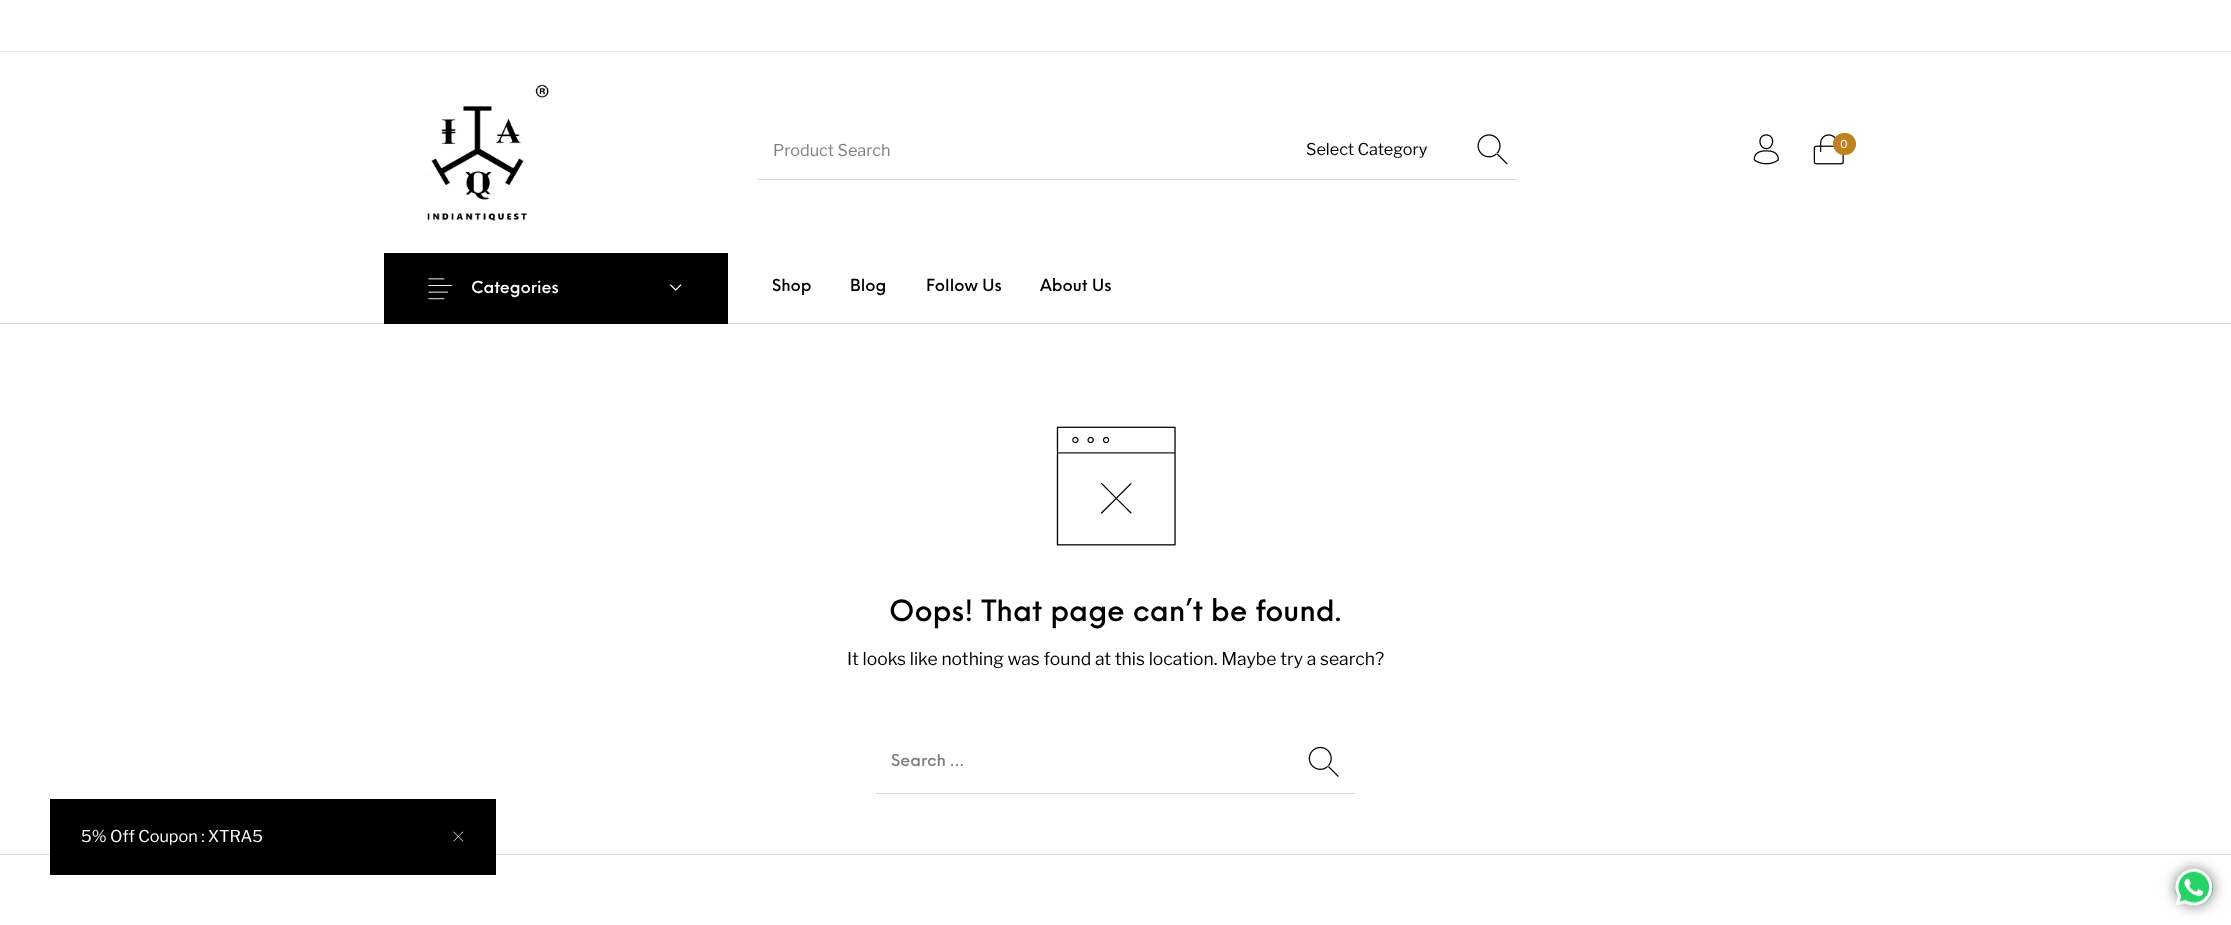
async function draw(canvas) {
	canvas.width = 2231;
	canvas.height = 925;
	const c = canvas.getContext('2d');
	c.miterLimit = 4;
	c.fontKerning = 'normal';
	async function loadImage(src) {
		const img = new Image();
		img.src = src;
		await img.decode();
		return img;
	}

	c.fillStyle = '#fff';
	c.fillRect(0, 0, 2231, 925);
	c.fillStyle = '#e7e6e6';
	c.fillRect(0, 51, 2231, 1);
	c.drawImage(await loadImage('img1.png'), 427, 84, 122, 137);
	c.fillStyle = '#d9d9d9';
	c.fillRect(758, 179, 760, 1);
	c.font = '16.25px Libre Franklin';
	c.fillStyle = '#808080';
	c.fillText('Product Search', 773, 156);
	c.fillStyle = '#ddd';
	c.beginPath();
	c.moveTo(1421, 147);
	c.lineTo(1429, 147);
	c.lineTo(1425, 153);
	c.closePath();
	c.fill();
	c.fillStyle = '#000';
	c.fillText('Select Category', 1306, 155);
	c.drawImage(await loadImage('img2.png'), 1477, 134, 31, 31);
	c.drawImage(await loadImage('img3.png'), 1753, 134, 26, 31);
	c.drawImage(await loadImage('img4.png'), 1813, 134, 31, 31);
	c.fillStyle = '#bf8020';
	c.beginPath();
	c.roundRect(1833, 133, 23, 22, 11);
	c.fill();
	c.font = '11px Libre Franklin';
	c.fillStyle = '#fff';
	c.fillText('0', 1840, 148);
	c.fillStyle = '#d9d9d9';
	c.fillRect(0, 323, 2231, 1);
	c.fillStyle = '#000';
	c.fillRect(384, 253, 344, 71);
	c.drawImage(await loadImage('img5.png'), 428, 278, 24, 22);
	c.font = '500 16.25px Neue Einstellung';
	c.fillStyle = '#fff';
	c.fillText('Categories', 471, 293);
	c.drawImage(await loadImage('img6.png'), 670, 284, 12, 7);
	c.save();
	c.beginPath();
	c.rect(773, 251, 38, 72);
	c.clip();
	c.fillStyle = '#000';
	c.fillText('Shop', 772, 291);
	c.restore();
	c.fillStyle = '#000';
	for (const [text, x, y] of [
		['Blog', 850, 291],
		['Follow Us', 926, 291],
		['About Us', 1040, 291],
	]) {
		c.fillText(text, x, y);
	}
	c.drawImage(await loadImage('img7.png'), 1056, 426, 120, 120);
	c.font = '500 28.75px Neue Einstellung';
	c.fillText('Oops! That page can’t be found.', 889, 621);
	c.font = '17.5px Libre Franklin';
	c.fillText('It looks like nothing was found at this location. Maybe try a search?', 847, 665);
	c.fillStyle = '#d9d9d9';
	c.fillRect(876, 793, 479, 1);
	c.save();
	c.beginPath();
	c.rect(891, 754, 399, 16);
	c.clip();
	c.font = '500 16.25px Neue Einstellung';
	c.fillStyle = '#808080';
	c.fillText('Search …', 891, 766);
	c.restore();
	c.drawImage(await loadImage('img8.png'), 1308, 746, 31, 31);
	c.fillRect(0, 854, 2231, 1);
	c.fillStyle = '#000';
	c.fillRect(50, 799, 446, 76);
	c.font = '16.25px Libre Franklin';
	c.fillStyle = '#fff';
	c.fillText('5% Off Coupon : XTRA5', 81, 842);
	c.drawImage(await loadImage('img9.png'), 453, 831, 11, 11);
	c.fillStyle = '#00000080';
	c.filter = 'blur(7px)';
	c.beginPath();
	c.roundRect(2175, 869, 38, 37, 18.5);
	c.fill();
	c.filter = 'none';
	c.fillStyle = '#25d366';
	c.beginPath();
	c.roundRect(2175, 869, 38, 37, 18.5);
	c.fill();
	c.drawImage(await loadImage('img10.png'), 2175, 868, 38, 38);
}

draw(document.querySelector('canvas'));
